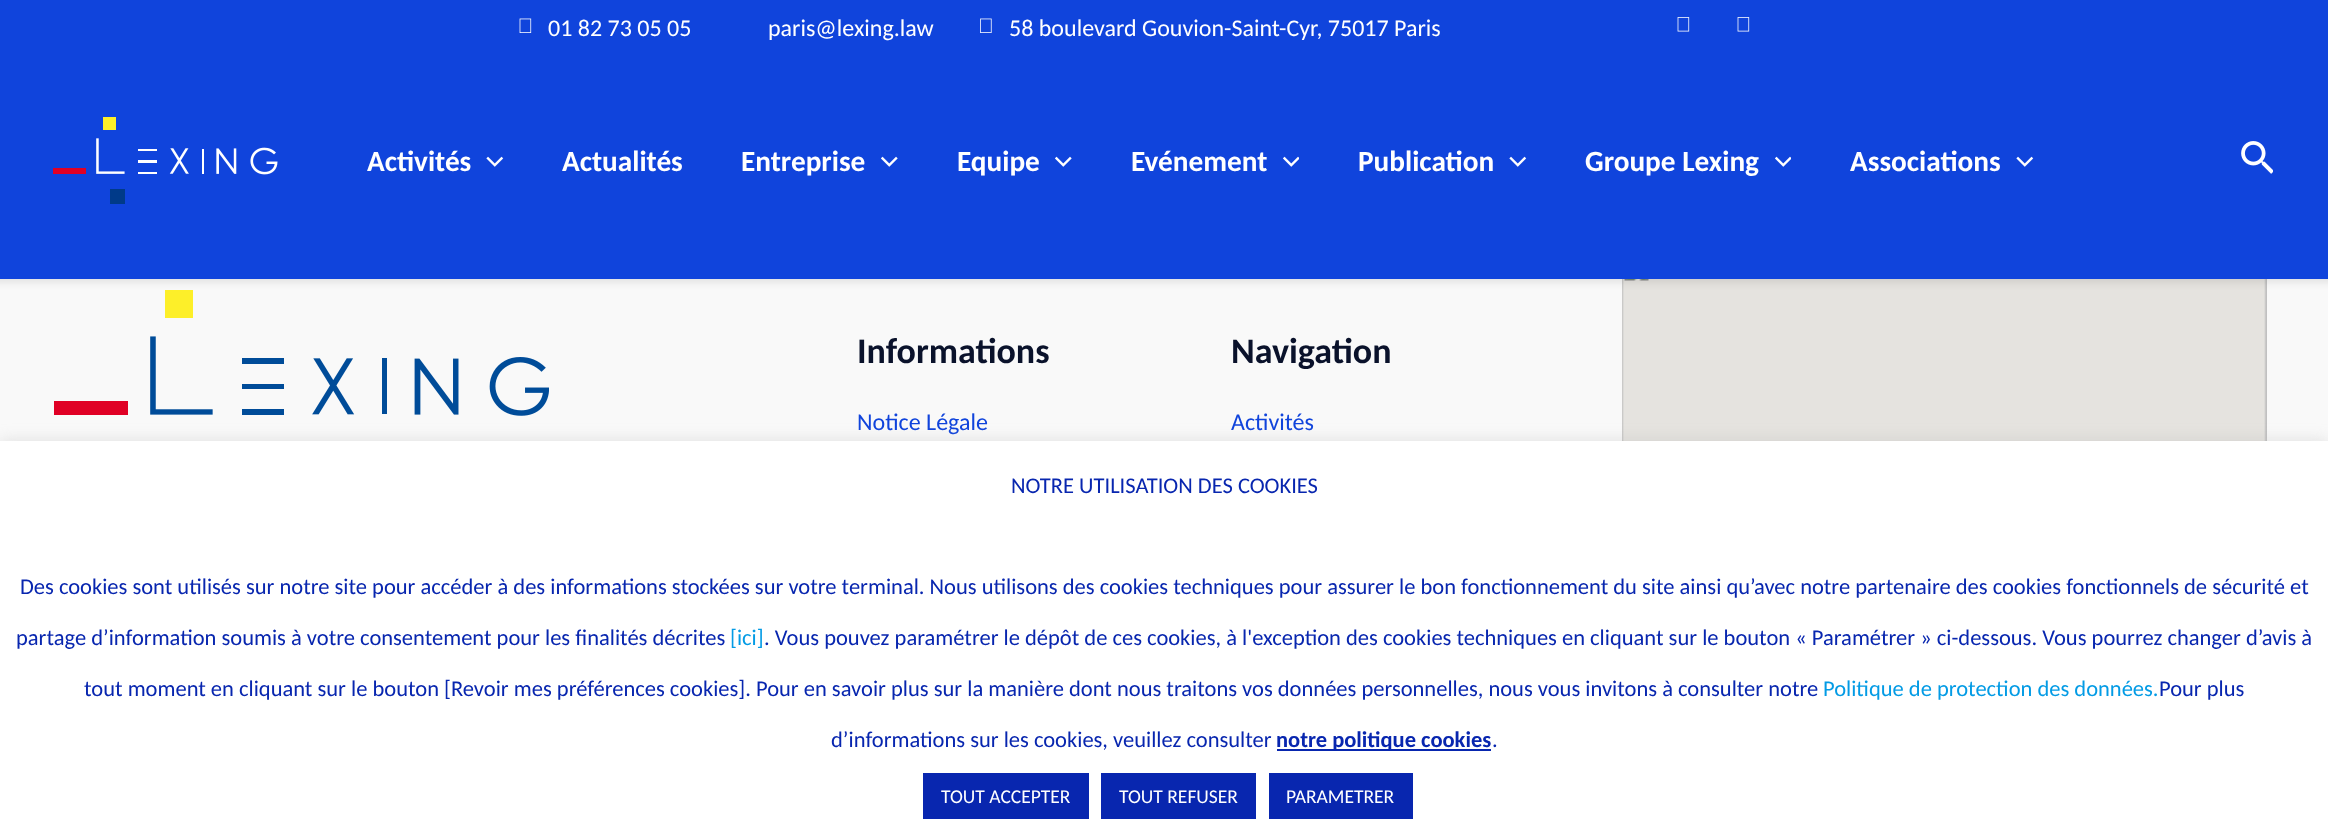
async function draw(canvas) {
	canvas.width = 2328;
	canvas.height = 838;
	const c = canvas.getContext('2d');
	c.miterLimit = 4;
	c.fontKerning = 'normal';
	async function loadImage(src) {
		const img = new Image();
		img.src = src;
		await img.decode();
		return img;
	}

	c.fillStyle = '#f9f9f9';
	c.fillRect(0, 0, 2328, 838);
	c.drawImage(await loadImage('img9.png'), 54, 290, 495, 126);
	c.drawImage(await loadImage('img10.png'), 1622, 279, 645, 162);
	c.fillStyle = '#0000001a';
	c.filter = 'blur(4px)';
	c.beginPath();
	c.rect(-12, -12, 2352, 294);
	c.fill();
	c.filter = 'none';
	c.fillStyle = '#1044dc';
	c.fillRect(0, 0, 2328, 279);
	c.drawImage(await loadImage('img1.png'), 519, 18, 13, 15);
	c.font = '24px Carlito';
	c.fillStyle = '#fff';
	c.fillText('01 82 73 05 05', 548, 36);
	c.fillText('paris@lexing.law', 768, 36);
	c.drawImage(await loadImage('img2.png'), 980, 18, 12, 15);
	c.fillText('58 boulevard Gouvion-Saint-Cyr, 75017 Paris', 1009, 36);
	c.drawImage(await loadImage('img3.png'), 1677, 17, 13, 15);
	c.drawImage(await loadImage('img3.png'), 1737, 17, 13, 15);
	c.drawImage(await loadImage('img4.png'), 53, 117, 225, 87);
	c.font = 'bold 29.25px Carlito';
	c.fillText('Activités', 367, 171);
	c.drawImage(await loadImage('img5.png'), 486, 156, 18, 11);
	c.fillText('Actualités', 562, 171);
	c.fillText('Entreprise', 741, 171);
	c.drawImage(await loadImage('img6.png'), 881, 156, 17, 11);
	c.fillText('Equipe', 957, 171);
	c.drawImage(await loadImage('img6.png'), 1055, 156, 17, 11);
	c.fillText('Evénement', 1131, 171);
	c.drawImage(await loadImage('img7.png'), 1283, 156, 16, 11);
	c.fillText('Publication', 1358, 171);
	c.drawImage(await loadImage('img5.png'), 1509, 156, 18, 11);
	c.fillText('Groupe Lexing', 1585, 171);
	c.drawImage(await loadImage('img7.png'), 1775, 156, 16, 11);
	c.fillText('Associations', 1850, 171);
	c.drawImage(await loadImage('img5.png'), 2016, 156, 18, 11);
	c.drawImage(await loadImage('img8.png'), 2241, 141, 32, 33);
	c.font = 'bold 36px Carlito';
	c.fillStyle = '#0a122b';
	c.fillText('Informations', 857, 363);
	c.font = '24px Carlito';
	c.fillStyle = '#1044dc';
	c.fillText('Notice Légale', 857, 430);
	c.font = 'bold 36px Carlito';
	c.fillStyle = '#0a122b';
	c.fillText('Navigation', 1231, 363);
	c.font = '24px Carlito';
	c.fillStyle = '#1044dc';
	c.fillText('Activités', 1231, 430);
	c.fillStyle = '#acabab4d';
	c.filter = 'blur(7.5px)';
	c.beginPath();
	c.rect(0, 440, 2328, 397);
	c.fill();
	c.filter = 'none';
	c.fillStyle = '#fff';
	c.fillRect(0, 441, 2328, 397);
	c.font = '22.5px Carlito';
	c.fillStyle = '#0826af';
	for (const [text, x, y] of [
		['NOTRE UTILISATION DES COOKIES', 1011, 493],
		['Des cookies sont utilisés sur notre site pour accéder à des informations stockées sur votre terminal. Nous utilisons des cookies techniques pour assurer le bon fonctionnement du site ainsi qu’avec notre partenaire des cookies fonctionnels de sécurité et', 20, 594],
		['partage d’information soumis à votre consentement pour les finalités décrites', 16, 645],
	]) {
		c.fillText(text, x, y);
	}
	c.fillStyle = '#039be5';
	c.fillText('[ici]', 730, 645);
	c.fillStyle = '#0826af';
	c.fillText('. Vous pouvez paramétrer le dépôt de ces cookies, à l\'exception des cookies techniques en cliquant sur le bouton « Paramétrer » ci-dessous. Vous pourrez changer d’avis à', 764, 645);
	c.fillText('tout moment en cliquant sur le bouton [Revoir mes préférences cookies]. Pour en savoir plus sur la manière dont nous traitons vos données personnelles, nous vous invitons à consulter notre', 84, 696);
	c.fillStyle = '#039be5';
	c.fillText('Politique de protection des données.', 1823, 696);
	c.fillStyle = '#0826af';
	c.fillText('Pour plus', 2159, 696);
	c.fillText('d’informations sur les cookies, veuillez consulter', 831, 747);
	c.fillRect(1277, 749, 214, 2);
	c.font = 'bold 22.5px Carlito';
	c.fillText('notre politique cookies', 1276, 747);
	c.font = '22.5px Carlito';
	c.fillText('.', 1492, 747);
	c.fillRect(923, 773, 166, 46);
	c.font = '19.5px Carlito';
	c.fillStyle = '#fff';
	c.fillText('TOUT ACCEPTER', 941, 803);
	c.fillStyle = '#0826af';
	c.fillRect(1101, 773, 155, 46);
	c.fillStyle = '#fff';
	c.fillText('TOUT REFUSER', 1119, 803);
	c.fillStyle = '#0826af';
	c.fillRect(1269, 773, 144, 46);
	c.fillStyle = '#fff';
	c.fillText('PARAMETRER', 1286, 803);
}

draw(document.querySelector('canvas'));
